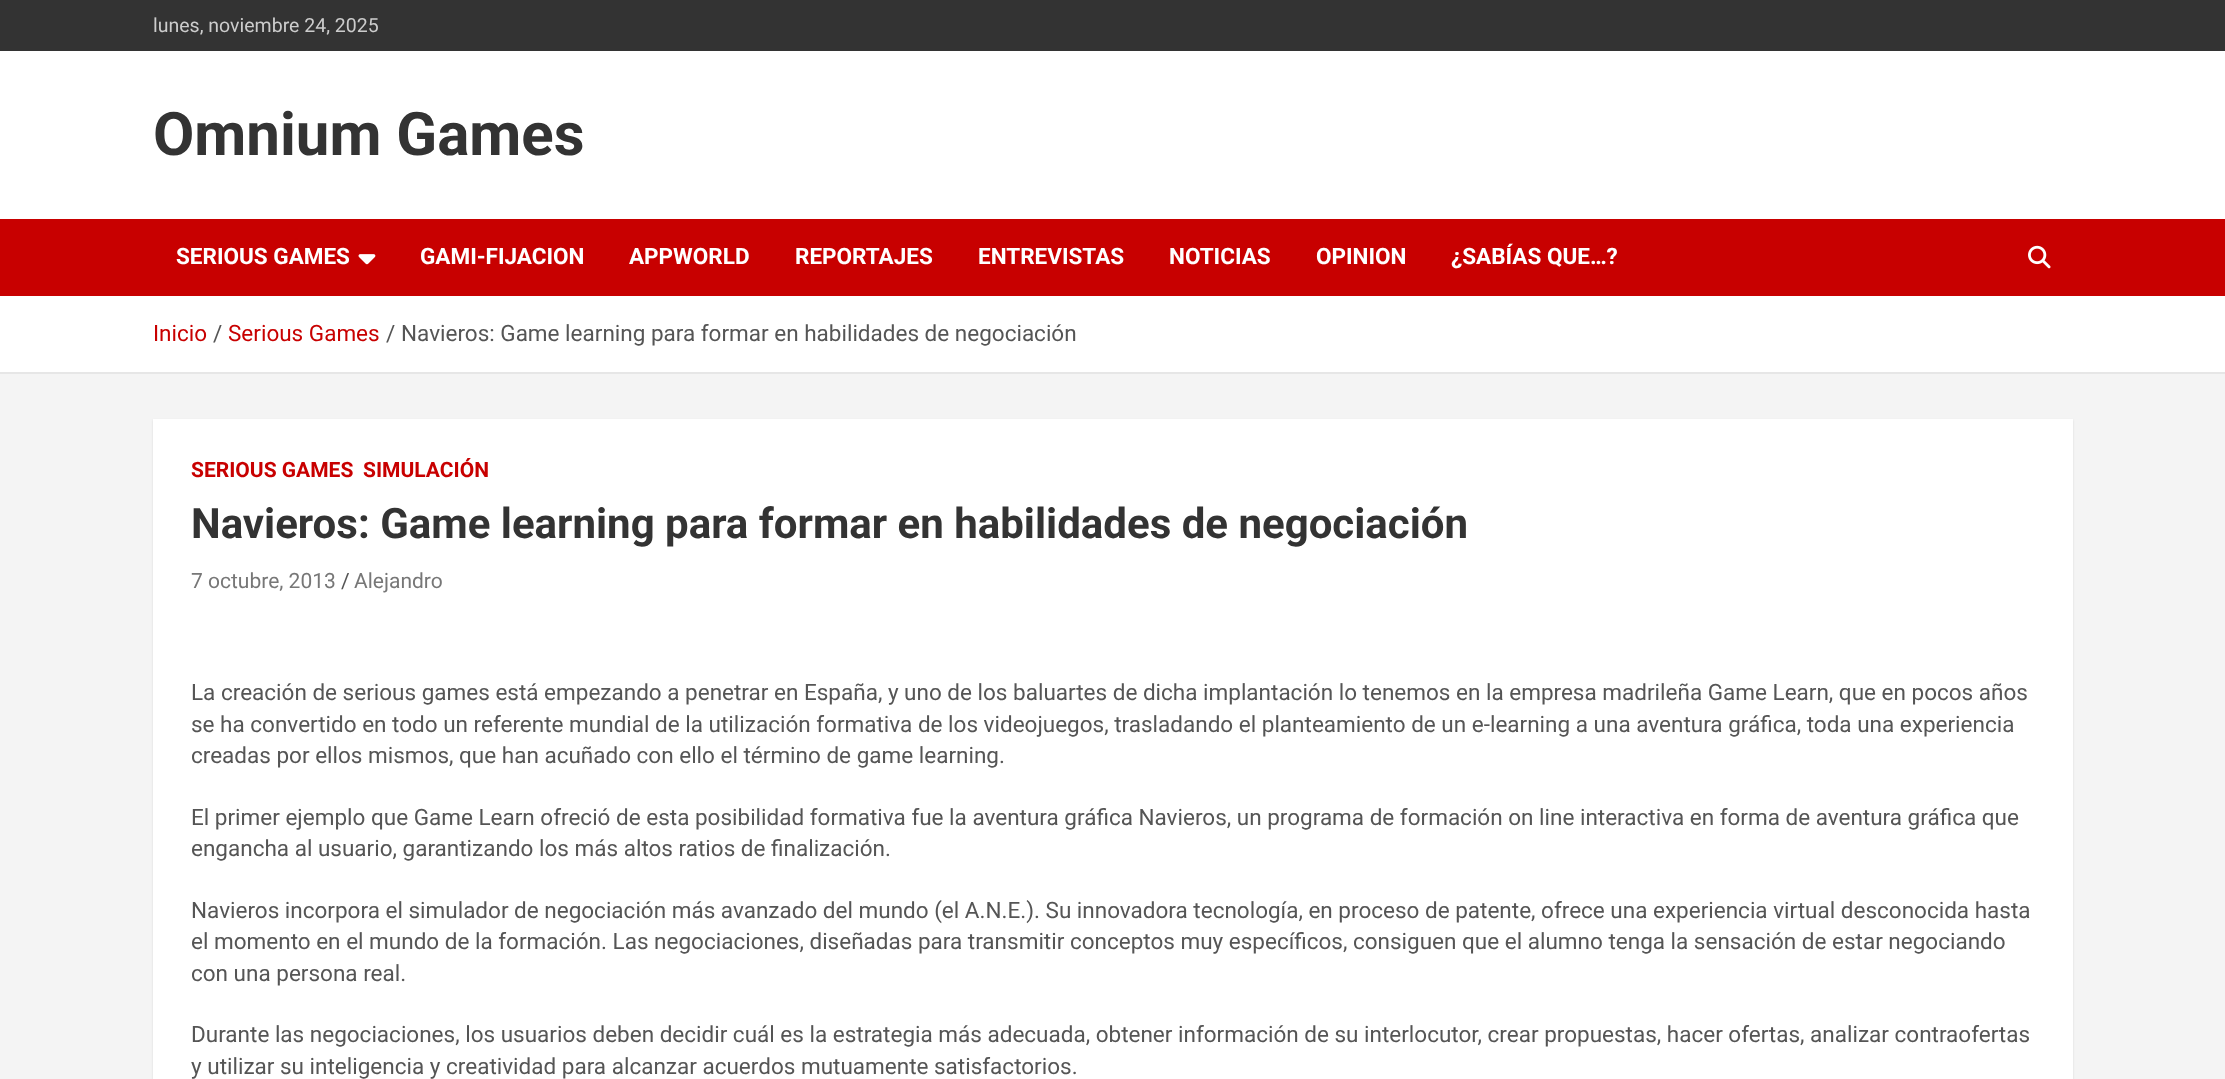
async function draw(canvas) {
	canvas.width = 2225;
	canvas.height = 1079;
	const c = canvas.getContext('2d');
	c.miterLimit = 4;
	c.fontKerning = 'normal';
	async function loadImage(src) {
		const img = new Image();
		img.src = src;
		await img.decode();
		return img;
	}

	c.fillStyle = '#f4f4f4';
	c.fillRect(0, 0, 2225, 1079);
	c.fillStyle = '#333';
	c.fillRect(0, 0, 2225, 51);
	c.font = '19.5px Roboto';
	c.fillStyle = '#ccc';
	c.fillText('lunes, noviembre 24, 2025', 153, 32);
	c.fillStyle = '#fff';
	c.fillRect(0, 51, 2225, 168);
	c.font = 'bold 60px Roboto';
	c.fillStyle = '#333';
	c.fillText('Omnium Games', 153, 155);
	c.fillStyle = '#c80000';
	c.fillRect(0, 219, 2225, 77);
	c.font = 'bold 22.5px Roboto';
	c.fillStyle = '#fff';
	c.fillText('SERIOUS GAMES', 176, 264);
	c.drawImage(await loadImage('img1.png'), 358, 254, 18, 11);
	for (const [text, x, y] of [
		['GAMI-FIJACION', 420, 264],
		['APPWORLD', 629, 264],
		['REPORTAJES', 795, 264],
		['ENTREVISTAS', 978, 264],
		['NOTICIAS', 1169, 264],
		['OPINION', 1316, 264],
		['¿SABÍAS QUE…?', 1451, 264],
	]) {
		c.fillText(text, x, y);
	}
	c.drawImage(await loadImage('img2.png'), 2028, 245, 23, 24);
	c.fillRect(0, 296, 2225, 76);
	c.fillStyle = '#e6e6e6';
	c.fillRect(0, 372, 2225, 2);
	c.font = '22.5px Roboto';
	c.fillStyle = '#c80000';
	c.fillText('Inicio', 153, 341);
	c.fillStyle = '#555';
	c.fillText('/', 213, 341);
	c.fillStyle = '#c80000';
	c.fillText('Serious Games', 228, 341);
	c.fillStyle = '#555';
	c.fillText('/', 386, 341);
	c.fillText('Navieros: Game learning para formar en habilidades de negociación', 401, 341);
	c.fillStyle = '#0000001a';
	c.filter = 'blur(1px)';
	c.beginPath();
	c.rect(153, 420, 1920, 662);
	c.fill();
	c.filter = 'none';
	c.fillStyle = '#fff';
	c.fillRect(153, 419, 1920, 660);
	c.font = 'bold 21px Roboto';
	c.fillStyle = '#c80000';
	c.fillText('SERIOUS GAMES', 191, 477);
	c.fillText('SIMULACIÓN', 363, 477);
	c.font = 'bold 42px Roboto';
	c.fillStyle = '#333';
	c.fillText('Navieros: Game learning para formar en habilidades de negociación', 191, 538);
	c.font = '21px Roboto';
	c.fillStyle = '#777';
	c.fillText('7 octubre, 2013', 191, 588);
	c.fillStyle = '#555';
	c.fillText('/', 341, 588);
	c.fillStyle = '#777';
	c.fillText('Alejandro', 354, 588);
	c.font = '22.5px Roboto';
	c.fillStyle = '#555';
	for (const [text, x, y] of [
		['La creación de serious games está empezando a penetrar en España, y uno de los baluartes de dicha implantación lo tenemos en la empresa madrileña Game Learn, que en pocos años', 191, 700],
		['se ha convertido en todo un referente mundial de la utilización formativa de los videojuegos, trasladando el planteamiento de un e-learning a una aventura gráfica, toda una experiencia', 191, 732],
		['creadas por ellos mismos, que han acuñado con ello el término de game learning.', 191, 763],
		['El primer ejemplo que Game Learn ofreció de esta posibilidad formativa fue la aventura gráfica Navieros, un programa de formación on line interactiva en forma de aventura gráfica que', 191, 825],
		['engancha al usuario, garantizando los más altos ratios de finalización.', 191, 856],
		['Navieros incorpora el simulador de negociación más avanzado del mundo (el A.N.E.). Su innovadora tecnología, en proceso de patente, ofrece una experiencia virtual desconocida hasta', 191, 918],
		['el momento en el mundo de la formación. Las negociaciones, diseñadas para transmitir conceptos muy específicos, consiguen que el alumno tenga la sensación de estar negociando', 191, 949],
		['con una persona real.', 191, 981],
		['Durante las negociaciones, los usuarios deben decidir cuál es la estrategia más adecuada, obtener información de su interlocutor, crear propuestas, hacer ofertas, analizar contraofertas', 191, 1042],
		['y utilizar su inteligencia y creatividad para alcanzar acuerdos mutuamente satisfactorios.', 191, 1074],
	]) {
		c.fillText(text, x, y);
	}
}

draw(document.querySelector('canvas'));
